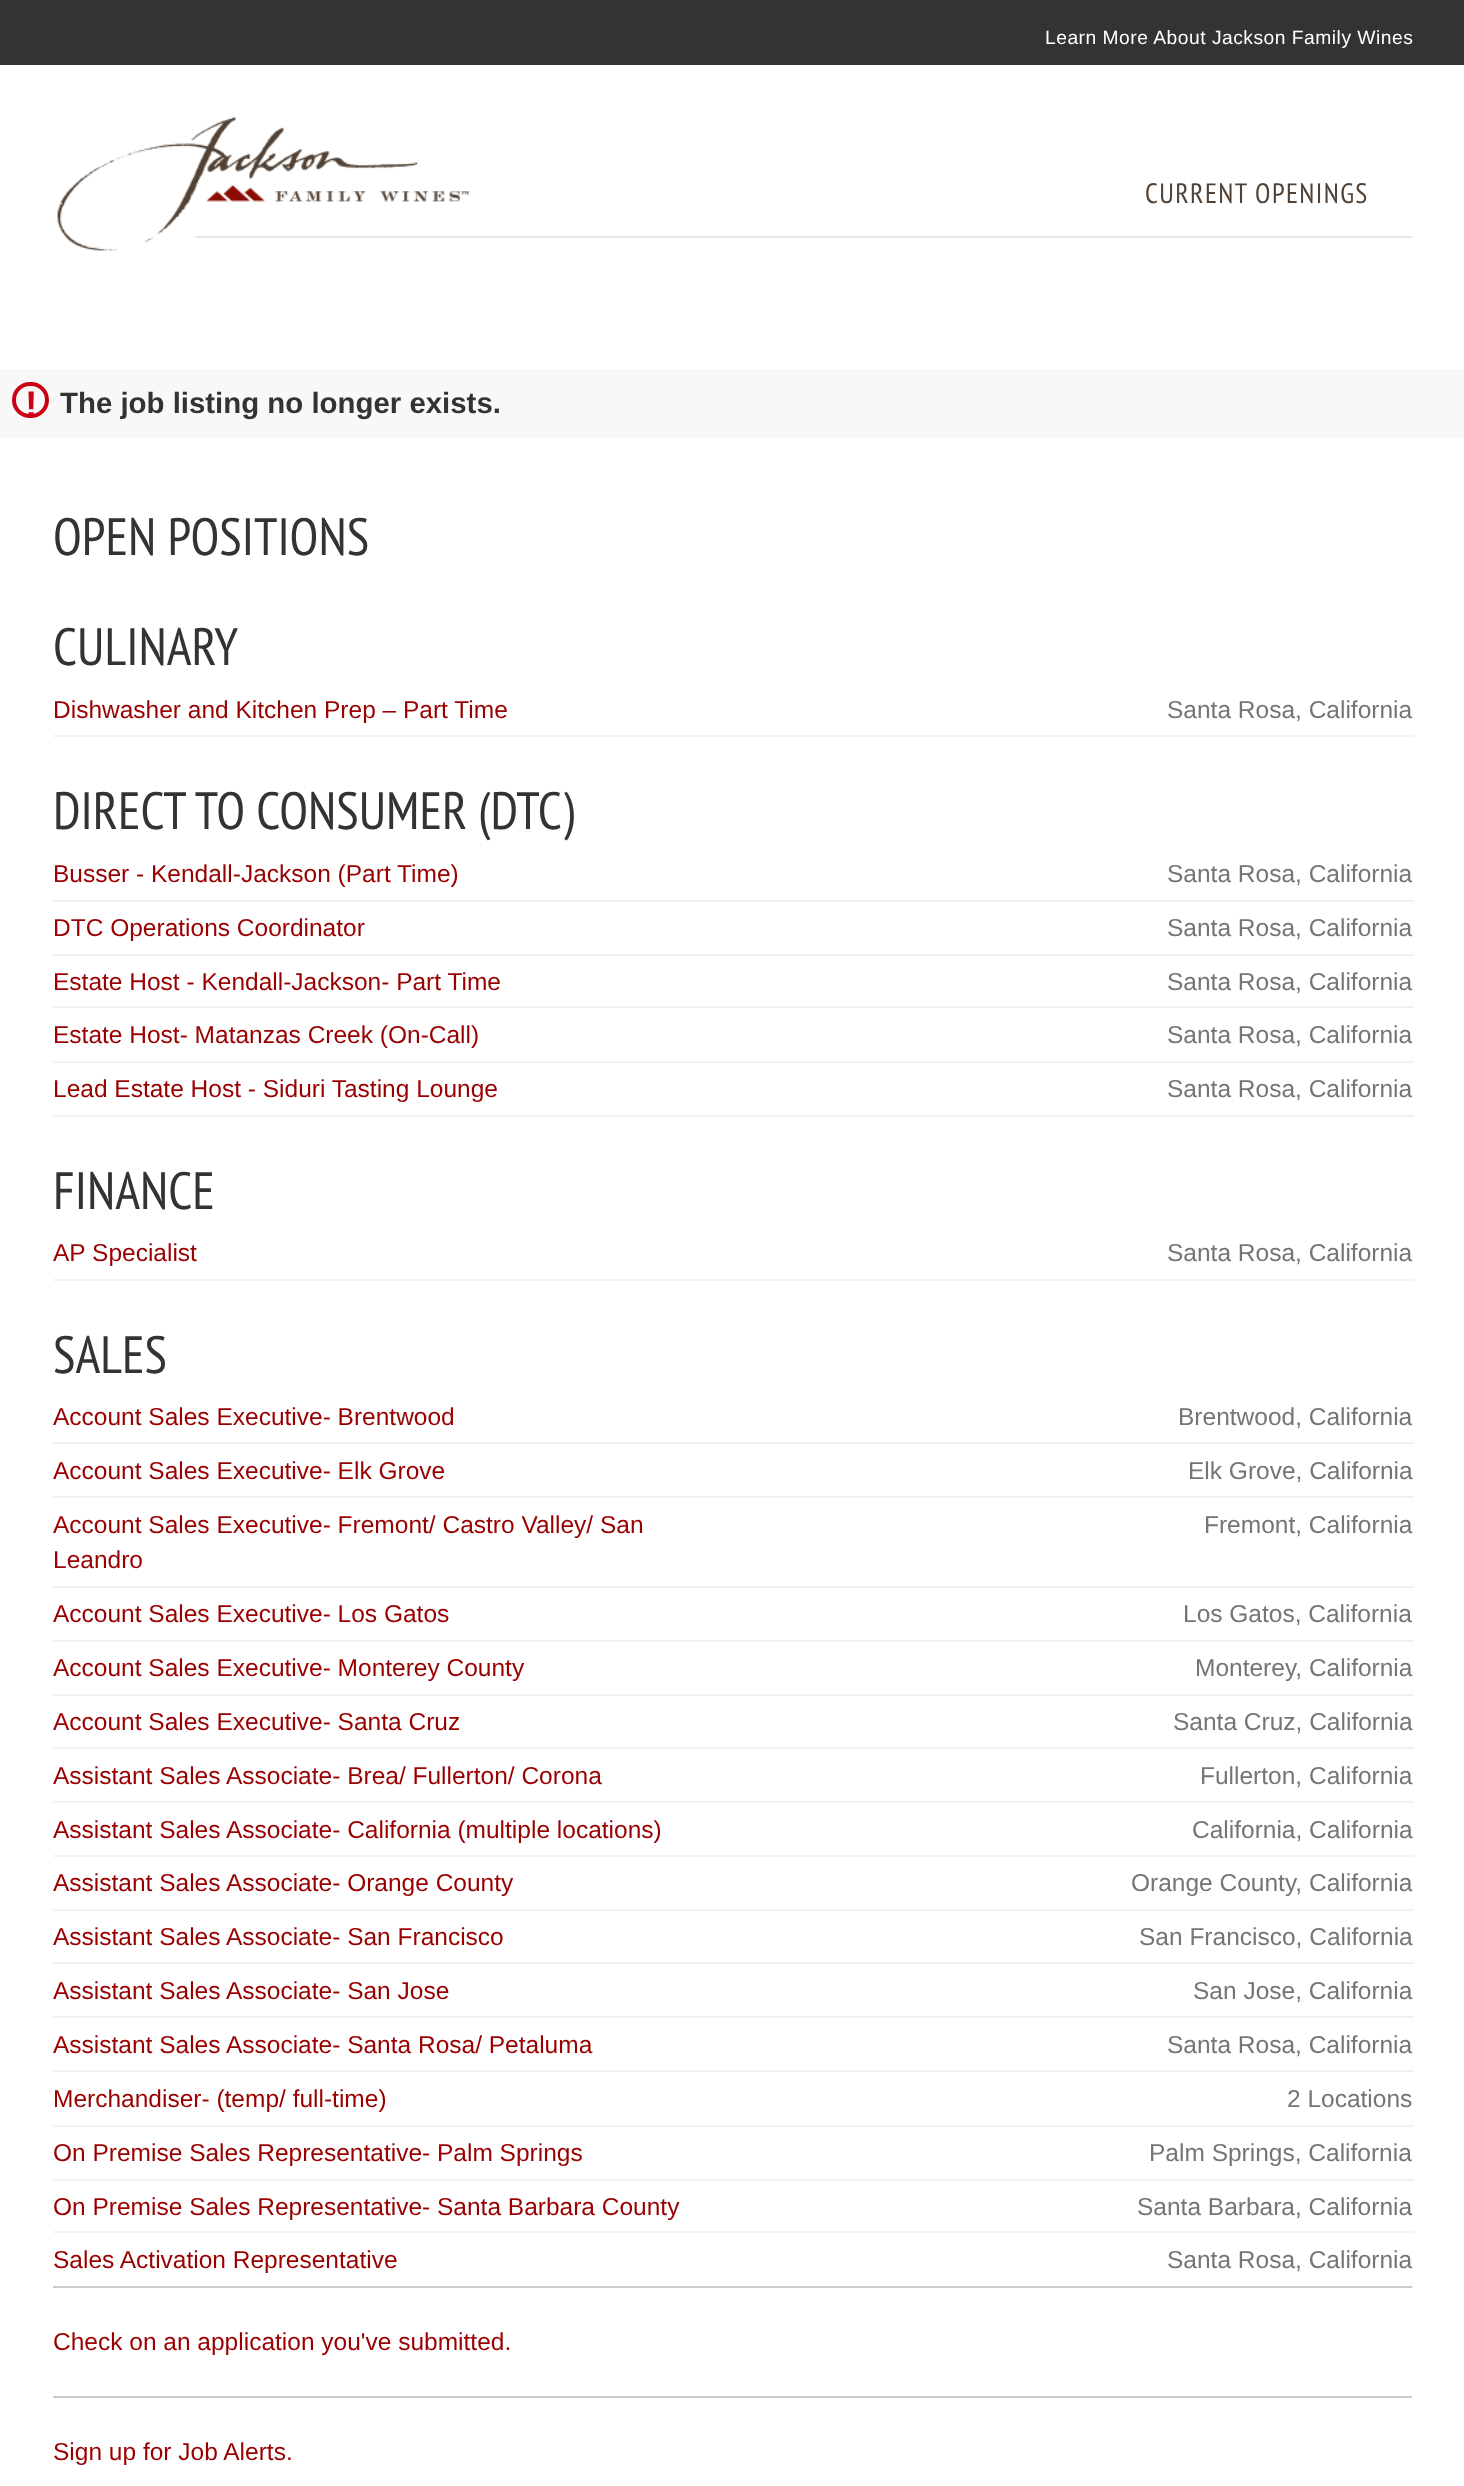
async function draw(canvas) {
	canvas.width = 1464;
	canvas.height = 2486;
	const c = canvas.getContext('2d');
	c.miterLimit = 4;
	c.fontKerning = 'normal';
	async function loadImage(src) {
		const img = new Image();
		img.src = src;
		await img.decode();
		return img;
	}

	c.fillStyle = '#fff';
	c.fillRect(0, 0, 1464, 2486);
	c.fillStyle = '#333';
	c.fillRect(0, 0, 1464, 65);
	c.letterSpacing = '0.5px';
	c.font = '19.25px Liberation Sans';
	c.fillStyle = '#fff';
	c.fillText('Learn More About Jackson Family Wines', 1045, 44);
	c.fillStyle = '#e7e7e7';
	c.fillRect(195, 236, 1217, 2);
	c.drawImage(await loadImage('img1.png'), 53, 117, 416, 134);
	c.letterSpacing = '1.4px';
	c.font = '28px PT Sans Narrow';
	c.fillStyle = '#524235';
	c.fillText('CURRENT OPENINGS', 1145, 203);
	c.fillStyle = '#f8f8f8';
	c.fillRect(0, 369, 1464, 69);
	c.beginPath();
	c.roundRect(14, 384, 33, 32, 16);
	c.strokeStyle = '#cb0013';
	c.lineWidth = 4;
	c.stroke();
	c.letterSpacing = '0px';
	c.font = 'bold 37px Liberation Sans';
	c.fillStyle = '#cb0013';
	c.fillText('!', 25, 417);
	c.font = 'bold 29.4px Liberation Sans';
	c.fillStyle = '#333';
	c.fillText('The job listing no longer exists.', 60, 413);
	c.font = '52.5px PT Sans Narrow';
	c.fillText('OPEN POSITIONS', 53, 555);
	c.fillText('CULINARY', 53, 665);
	c.font = '24.5px Liberation Sans';
	c.fillStyle = '#900';
	c.fillText('Dishwasher and Kitchen Prep – Part Time', 53, 718);
	c.fillStyle = '#f2f2f2';
	c.fillRect(53, 735, 1361, 2);
	c.fillStyle = '#757575';
	c.fillText('Santa Rosa, California', 1167, 718);
	c.font = '52.5px PT Sans Narrow';
	c.fillStyle = '#333';
	c.fillText('DIRECT TO CONSUMER (DTC)', 53, 829);
	c.font = '24.5px Liberation Sans';
	c.fillStyle = '#900';
	c.fillText('Busser - Kendall-Jackson (Part Time)', 53, 882);
	c.fillStyle = '#f2f2f2';
	c.fillRect(53, 900, 1361, 2);
	c.fillStyle = '#757575';
	c.fillText('Santa Rosa, California', 1167, 882);
	c.fillStyle = '#900';
	c.fillText('DTC Operations Coordinator', 53, 936);
	c.fillStyle = '#f2f2f2';
	c.fillRect(53, 954, 1361, 2);
	c.fillStyle = '#757575';
	c.fillText('Santa Rosa, California', 1167, 936);
	c.fillStyle = '#900';
	c.fillText('Estate Host - Kendall-Jackson- Part Time', 53, 990);
	c.fillStyle = '#f2f2f2';
	c.fillRect(53, 1006, 1361, 2);
	c.fillStyle = '#757575';
	c.fillText('Santa Rosa, California', 1167, 990);
	c.fillStyle = '#900';
	c.fillText('Estate Host- Matanzas Creek (On-Call)', 53, 1043);
	c.fillStyle = '#f2f2f2';
	c.fillRect(53, 1061, 1361, 2);
	c.fillStyle = '#757575';
	c.fillText('Santa Rosa, California', 1167, 1043);
	c.fillStyle = '#900';
	c.fillText('Lead Estate Host - Siduri Tasting Lounge', 53, 1097);
	c.fillStyle = '#f2f2f2';
	c.fillRect(53, 1115, 1361, 2);
	c.fillStyle = '#757575';
	c.fillText('Santa Rosa, California', 1167, 1097);
	c.font = '52.5px PT Sans Narrow';
	c.fillStyle = '#333';
	c.fillText('FINANCE', 53, 1209);
	c.font = '24.5px Liberation Sans';
	c.fillStyle = '#900';
	c.fillText('AP Specialist', 53, 1261);
	c.fillStyle = '#f2f2f2';
	c.fillRect(53, 1279, 1361, 2);
	c.fillStyle = '#757575';
	c.fillText('Santa Rosa, California', 1167, 1261);
	c.font = '52.5px PT Sans Narrow';
	c.fillStyle = '#333';
	c.fillText('SALES', 53, 1373);
	c.font = '24.5px Liberation Sans';
	c.fillStyle = '#900';
	c.fillText('Account Sales Executive- Brentwood', 53, 1425);
	c.fillStyle = '#f2f2f2';
	c.fillRect(53, 1442, 1361, 2);
	c.fillStyle = '#757575';
	c.fillText('Brentwood, California', 1178, 1425);
	c.fillStyle = '#900';
	c.fillText('Account Sales Executive- Elk Grove', 53, 1479);
	c.fillStyle = '#f2f2f2';
	c.fillRect(53, 1496, 1361, 2);
	c.fillStyle = '#757575';
	c.fillText('Elk Grove, California', 1188, 1479);
	c.fillStyle = '#900';
	c.fillText('Account Sales Executive- Fremont/ Castro Valley/ San', 53, 1533);
	c.fillText('Leandro', 53, 1568);
	c.fillStyle = '#f2f2f2';
	c.fillRect(53, 1586, 1361, 2);
	c.fillStyle = '#757575';
	c.fillText('Fremont, California', 1204, 1533);
	c.fillStyle = '#900';
	c.fillText('Account Sales Executive- Los Gatos', 53, 1622);
	c.fillStyle = '#f2f2f2';
	c.fillRect(53, 1640, 1361, 2);
	c.fillStyle = '#757575';
	c.fillText('Los Gatos, California', 1183, 1622);
	c.fillStyle = '#900';
	c.fillText('Account Sales Executive- Monterey County', 53, 1676);
	c.fillStyle = '#f2f2f2';
	c.fillRect(53, 1694, 1361, 2);
	c.fillStyle = '#757575';
	c.fillText('Monterey, California', 1195, 1676);
	c.fillStyle = '#900';
	c.fillText('Account Sales Executive- Santa Cruz', 53, 1730);
	c.fillStyle = '#f2f2f2';
	c.fillRect(53, 1747, 1361, 2);
	c.fillStyle = '#757575';
	c.fillText('Santa Cruz, California', 1173, 1730);
	c.fillStyle = '#900';
	c.fillText('Assistant Sales Associate- Brea/ Fullerton/ Corona', 53, 1784);
	c.fillStyle = '#f2f2f2';
	c.fillRect(53, 1801, 1361, 2);
	c.fillStyle = '#757575';
	c.fillText('Fullerton, California', 1200, 1784);
	c.fillStyle = '#900';
	c.fillText('Assistant Sales Associate- California (multiple locations)', 53, 1838);
	c.fillStyle = '#f2f2f2';
	c.fillRect(53, 1855, 1361, 2);
	c.fillStyle = '#757575';
	c.fillText('California, California', 1192, 1838);
	c.fillStyle = '#900';
	c.fillText('Assistant Sales Associate- Orange County', 53, 1891);
	c.fillStyle = '#f2f2f2';
	c.fillRect(53, 1909, 1361, 2);
	c.fillStyle = '#757575';
	c.fillText('Orange County, California', 1131, 1891);
	c.fillStyle = '#900';
	c.fillText('Assistant Sales Associate- San Francisco', 53, 1945);
	c.fillStyle = '#f2f2f2';
	c.fillRect(53, 1962, 1361, 2);
	c.fillStyle = '#757575';
	c.fillText('San Francisco, California', 1139, 1945);
	c.fillStyle = '#900';
	c.fillText('Assistant Sales Associate- San Jose', 53, 1999);
	c.fillStyle = '#f2f2f2';
	c.fillRect(53, 2016, 1361, 2);
	c.fillStyle = '#757575';
	c.fillText('San Jose, California', 1193, 1999);
	c.fillStyle = '#900';
	c.fillText('Assistant Sales Associate- Santa Rosa/ Petaluma', 53, 2053);
	c.fillStyle = '#f2f2f2';
	c.fillRect(53, 2070, 1361, 2);
	c.fillStyle = '#757575';
	c.fillText('Santa Rosa, California', 1167, 2053);
	c.fillStyle = '#900';
	c.fillText('Merchandiser- (temp/ full-time)', 53, 2107);
	c.fillStyle = '#f2f2f2';
	c.fillRect(53, 2125, 1361, 2);
	c.fillStyle = '#757575';
	c.fillText('2 Locations', 1287, 2107);
	c.fillStyle = '#900';
	c.fillText('On Premise Sales Representative- Palm Springs', 53, 2161);
	c.fillStyle = '#f2f2f2';
	c.fillRect(53, 2179, 1361, 2);
	c.fillStyle = '#757575';
	c.fillText('Palm Springs, California', 1149, 2161);
	c.fillStyle = '#900';
	c.fillText('On Premise Sales Representative- Santa Barbara County', 53, 2215);
	c.fillStyle = '#f2f2f2';
	c.fillRect(53, 2231, 1361, 2);
	c.fillStyle = '#757575';
	c.fillText('Santa Barbara, California', 1137, 2215);
	c.fillStyle = '#900';
	c.fillText('Sales Activation Representative', 53, 2268);
	c.fillStyle = '#f2f2f2';
	c.fillRect(1412, 2286, 2, 2);
	c.fillStyle = '#757575';
	c.fillText('Santa Rosa, California', 1167, 2268);
	c.fillStyle = '#ccc';
	c.fillRect(53, 2286, 1359, 2);
	c.fillStyle = '#900';
	c.fillText('Check on an application you\'ve submitted.', 53, 2350);
	c.fillStyle = '#ccc';
	c.fillRect(53, 2396, 1359, 2);
	c.fillStyle = '#900';
	c.fillText('Sign up for Job Alerts.', 53, 2460);
}

draw(document.querySelector('canvas'));
